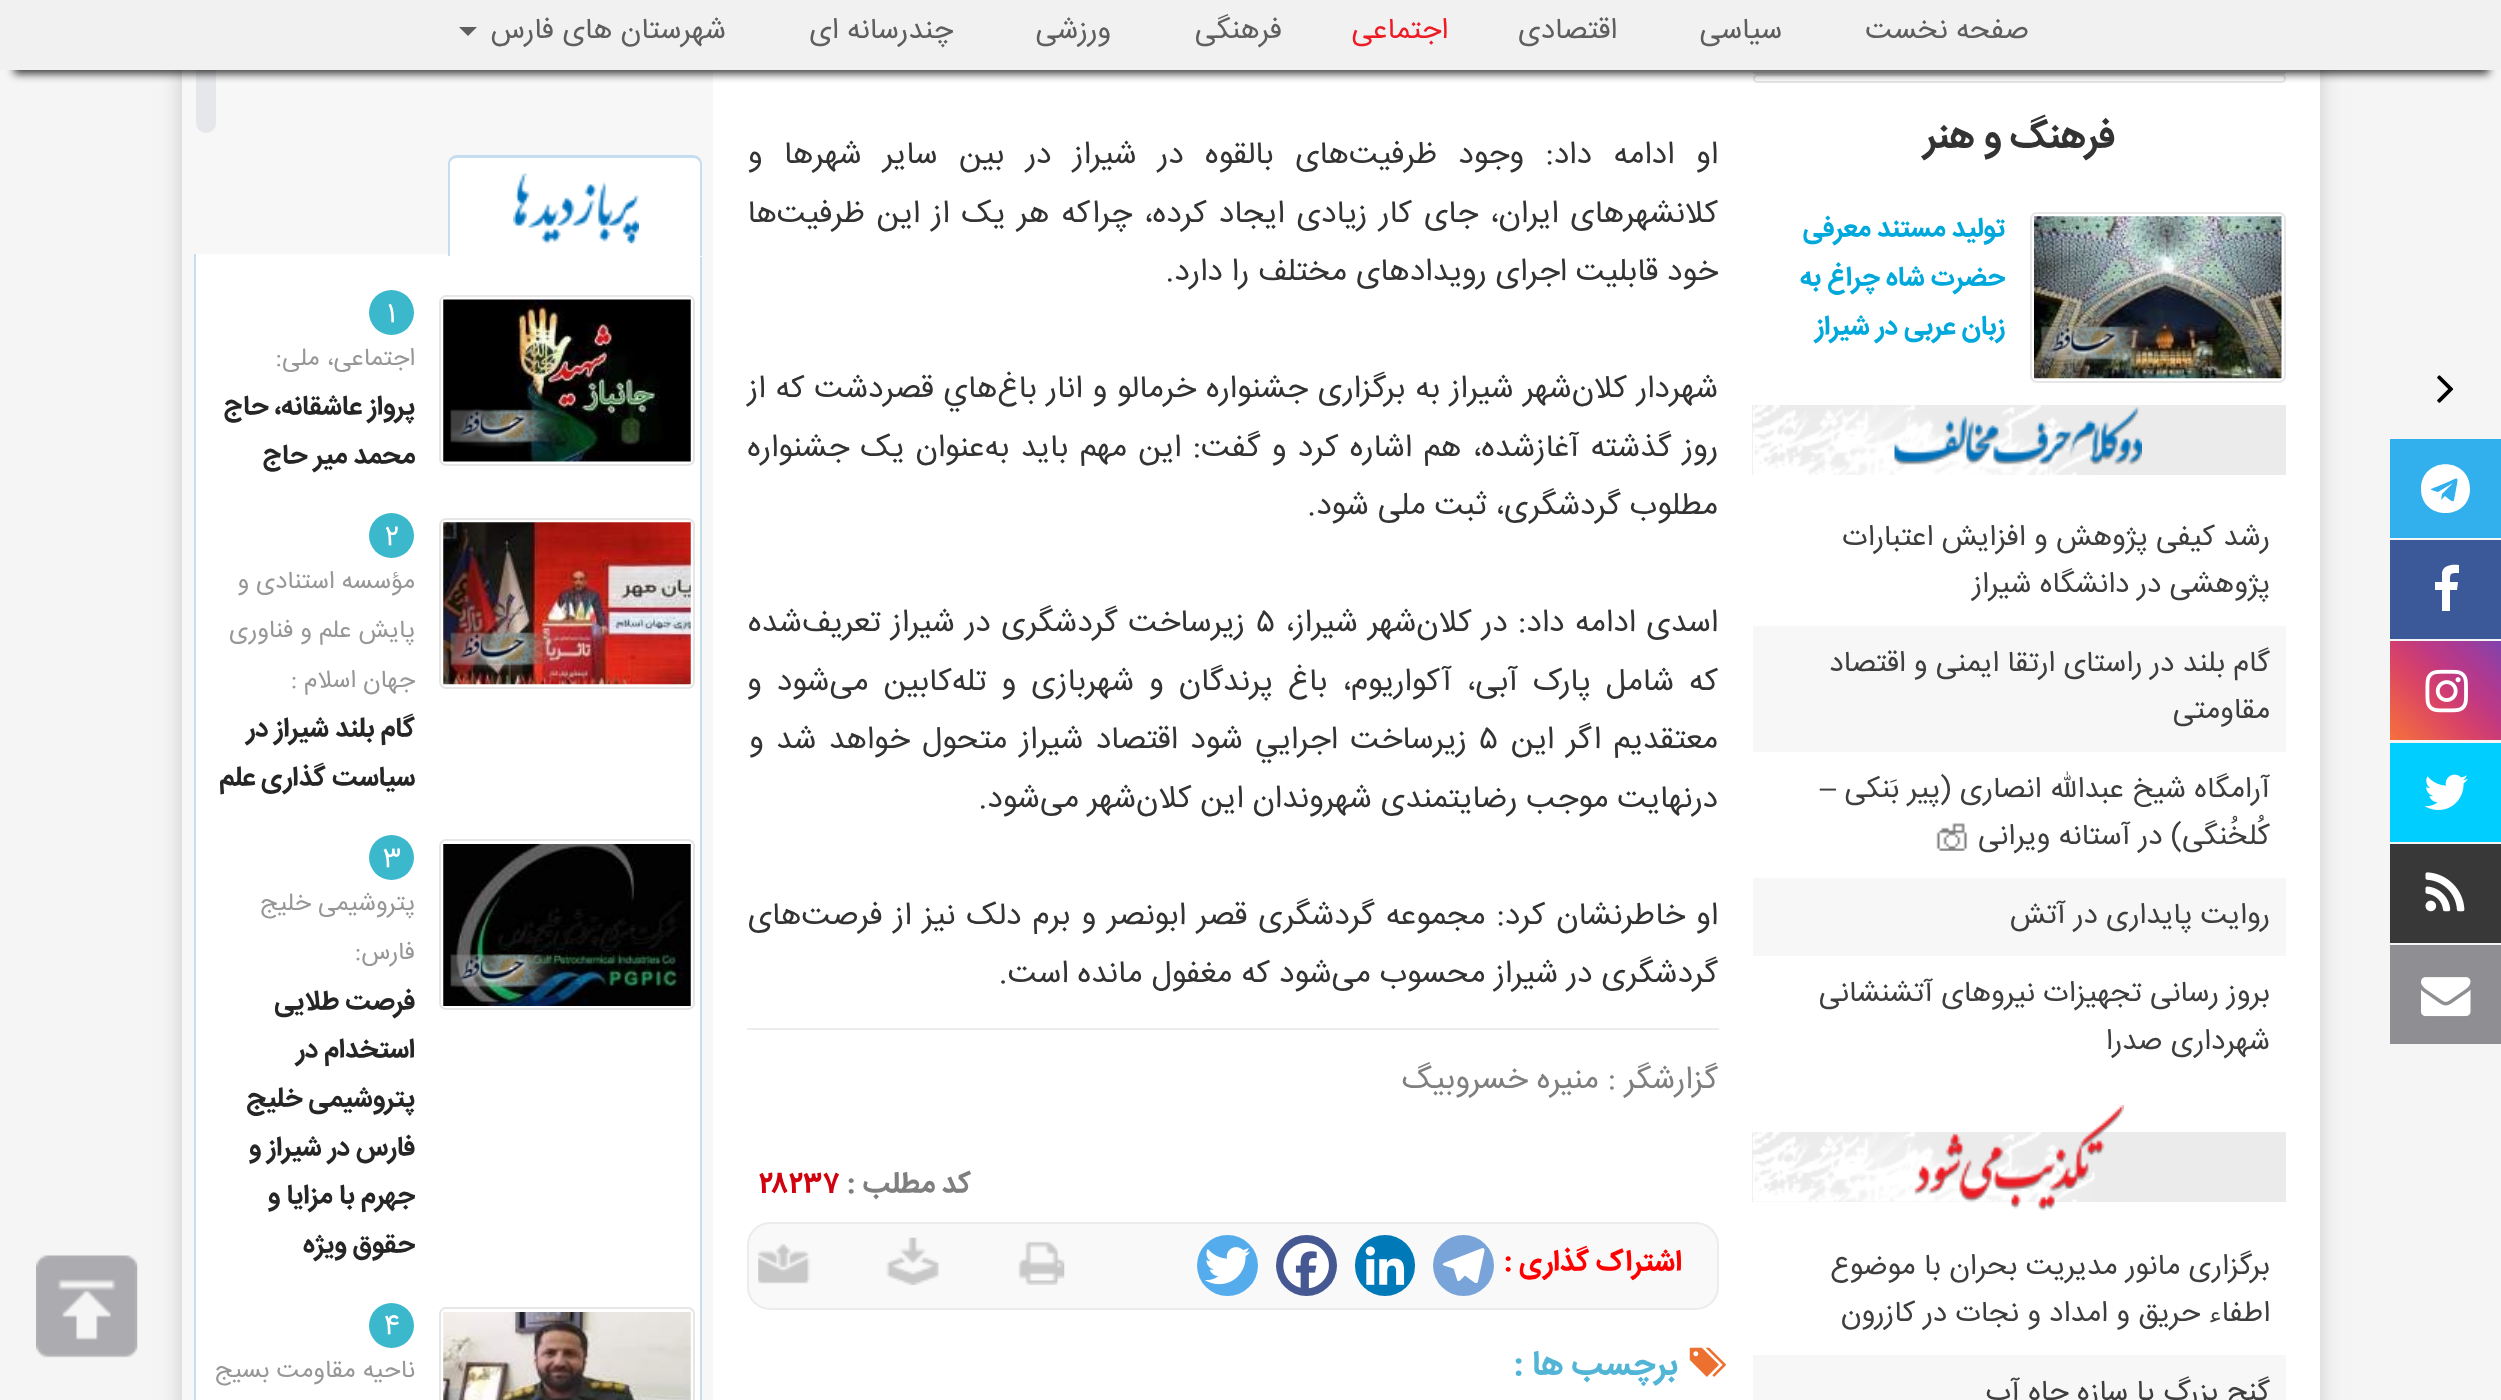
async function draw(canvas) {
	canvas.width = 2501;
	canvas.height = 1400;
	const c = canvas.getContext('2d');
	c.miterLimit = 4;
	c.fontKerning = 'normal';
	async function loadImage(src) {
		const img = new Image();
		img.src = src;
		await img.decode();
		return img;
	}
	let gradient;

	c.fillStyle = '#f5f5f5';
	c.fillRect(0, 0, 2501, 1400);
	c.drawImage(await loadImage('img1.png'), 2437, 375, 17, 28);
	c.fillStyle = '#32afed';
	c.fillRect(2390, 439, 111, 99);
	c.fillStyle = '#fff';
	c.beginPath();
	c.moveTo(2454, 500);
	c.bezierCurveTo(2453, 504, 2447, 497, 2445, 496);
	c.lineTo(2441, 500);
	c.lineTo(2442, 494);
	c.lineTo(2453, 483);
	c.lineTo(2438, 492);
	c.bezierCurveTo(2432, 490, 2427, 490, 2436, 487);
	c.lineTo(2448, 482);
	c.bezierCurveTo(2455, 479, 2459, 475, 2457, 484);
	c.closePath();
	c.moveTo(2470, 489);
	c.bezierCurveTo(2470, 456, 2421, 456, 2421, 489);
	c.bezierCurveTo(2421, 521, 2470, 521, 2470, 489);
	c.closePath();
	c.fill();
	c.fillStyle = '#3b5998';
	c.fillRect(2390, 540, 111, 99);
	c.fillStyle = '#fff';
	c.beginPath();
	c.moveTo(2459, 565);
	c.bezierCurveTo(2452, 564, 2443, 565, 2442, 573);
	c.lineTo(2442, 582);
	c.lineTo(2435, 582);
	c.lineTo(2435, 590);
	c.lineTo(2442, 590);
	c.lineTo(2442, 611);
	c.lineTo(2450, 611);
	c.lineTo(2450, 590);
	c.lineTo(2457, 590);
	c.lineTo(2458, 582);
	c.lineTo(2450, 582);
	c.bezierCurveTo(2450, 573, 2450, 573, 2459, 573);
	c.closePath();
	c.fill();
	gradient = c.createLinearGradient(2498, 638, 2393, 744);
	gradient.addColorStop(0, '#8043af');
	gradient.addColorStop(0.03, '#8442aa');
	gradient.addColorStop(0.03, '#8740a9');
	gradient.addColorStop(0.04, '#8842a8');
	gradient.addColorStop(0.06, '#8d3fa7');
	gradient.addColorStop(0.07, '#8d41a4');
	gradient.addColorStop(0.16, '#9d3d9c');
	gradient.addColorStop(0.16, '#9f3c9a');
	gradient.addColorStop(0.2, '#a63b96');
	gradient.addColorStop(0.2, '#a73a97');
	gradient.addColorStop(0.23, '#a83b96');
	gradient.addColorStop(0.23, '#aa3a92');
	gradient.addColorStop(0.25, '#ac3990');
	gradient.addColorStop(0.31, '#b63a8b');
	gradient.addColorStop(0.35, '#b93a88');
	gradient.addColorStop(0.35, '#bb3986');
	gradient.addColorStop(0.37, '#bc3986');
	gradient.addColorStop(0.37, '#be3884');
	gradient.addColorStop(0.4, '#c03a83');
	gradient.addColorStop(0.4, '#c13c83');
	gradient.addColorStop(0.41, '#c4397f');
	gradient.addColorStop(0.44, '#c63b7a');
	gradient.addColorStop(0.47, '#ca3d75');
	gradient.addColorStop(0.47, '#cb3c75');
	gradient.addColorStop(0.49, '#ca3e74');
	gradient.addColorStop(0.49, '#cc3d74');
	gradient.addColorStop(0.5, '#ce3e75');
	gradient.addColorStop(0.5, '#cf3d74');
	gradient.addColorStop(0.59, '#d84466');
	gradient.addColorStop(0.59, '#d94367');
	gradient.addColorStop(0.9, '#ef6744');
	gradient.addColorStop(0.95, '#f26a43');
	gradient.addColorStop(0.95, '#f26c42');
	gradient.addColorStop(0.98, '#f3703f');
	gradient.addColorStop(0.98, '#f46f40');
	gradient.addColorStop(1, '#f57041');
	gradient.addColorStop(1, '#f47141');
	gradient.addColorStop(1, '#f47141');
	c.fillStyle = gradient;
	c.fillRect(2390, 641, 111, 99);
	c.drawImage(await loadImage('img2.png'), 2425, 669, 43, 44);
	c.fillStyle = '#00ceff';
	c.fillRect(2390, 743, 111, 99);
	c.drawImage(await loadImage('img3.png'), 2424, 774, 44, 36);
	c.fillStyle = '#383838';
	c.fillRect(2390, 844, 111, 99);
	c.drawImage(await loadImage('img4.png'), 2425, 872, 40, 40);
	c.fillStyle = '#8e8e93';
	c.fillRect(2390, 945, 111, 99);
	c.drawImage(await loadImage('img5.png'), 2421, 977, 50, 40);
	c.fillStyle = '#cacaca';
	c.filter = 'blur(11px)';
	c.beginPath();
	c.rect(182, -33, 2138, 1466);
	c.fill();
	c.filter = 'none';
	c.fillStyle = '#fff';
	c.fillRect(713, 70, 1607, 1330);
	c.fillStyle = '#e6e6e6';
	c.fillRect(1753, 72, 533, 2);
	c.beginPath();
	c.roundRect(1754, 75, 531, 7, 3.5);
	c.strokeStyle = '#e6e6e6';
	c.lineWidth = 2;
	c.stroke();
	c.fillStyle = '#f7f7f7';
	c.fillRect(182, 70, 531, 1330);
	c.fillStyle = '#e6e7ea';
	c.beginPath();
	c.roundRect(196, -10, 20, 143, 10);
	c.fill();
	c.fillStyle = '#000000bf';
	c.filter = 'blur(4.5px)';
	c.beginPath();
	c.rect(14, 32, 2475, 42);
	c.fill();
	c.filter = 'none';
	c.fillStyle = '#f1f1f1';
	c.fillRect(0, 0, 2501, 70);
	c.direction = 'rtl';
	c.font = '29.25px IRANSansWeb';
	c.fillStyle = '#5f5e5e';
	for (const [text, x, y] of [
		['صفحه نخست', 2029, 38],
		['سیاسی', 1782, 38],
		['اقتصادی', 1617, 38],
	]) {
		c.fillText(text, x, y);
	}
	c.fillStyle = '#ed1c24';
	c.fillText('اجتماعی', 1448, 38);
	c.fillStyle = '#5f5e5e';
	for (const [text, x, y] of [
		['فرهنگی', 1282, 38],
		['ورزشی', 1111, 38],
		['چندرسانه ای', 953, 38],
		['شهرستان های فارس', 726, 38],
	]) {
		c.fillText(text, x, y);
	}
	c.beginPath();
	c.moveTo(459, 27);
	c.lineTo(477, 27);
	c.lineTo(468, 36);
	c.closePath();
	c.fill();
	c.font = 'bold 38.25px IRANSansWeb';
	c.fillStyle = '#333';
	c.fillText('فرهنگ و هنر', 2115, 147);
	c.beginPath();
	c.roundRect(2031, 213, 254, 169, 6);
	c.stroke();
	c.drawImage(await loadImage('img6.png'), 2034, 216, 248, 163);
	c.font = 'bold 27px IRANSansWeb';
	c.fillStyle = '#00a8db';
	for (const [text, x, y] of [
		['تولید مستند معرفی', 2005, 236],
		['حضرت شاه چراغ به', 2005, 285],
		['زبان عربی در شیراز', 2005, 334],
	]) {
		c.fillText(text, x, y);
	}
	c.fillStyle = '#ebebeb';
	c.fillRect(1752, 405, 534, 70);
	c.drawImage(await loadImage('img7.png'), 1752, 405, 343, 70);
	c.drawImage(await loadImage('img8.png'), 1894, 407, 248, 59);
	c.font = '29.25px IRANSansWeb';
	c.fillStyle = '#3e3e3e';
	c.fillText('رشد کیفی پژوهش و افزایش اعتبارات', 2270, 545);
	c.fillText('پژوهشی در دانشگاه شیراز', 2270, 592);
	c.fillStyle = '#f7f7f7';
	c.fillRect(1753, 626, 533, 126);
	c.fillStyle = '#3e3e3e';
	for (const [text, x, y] of [
		['گام بلند در راستای ارتقا ایمنی و اقتصاد', 2270, 671],
		['مقاومتی', 2270, 718],
		['آرامگاه شیخ عبدالله انصاری (پیر بَنکی', 2270, 797],
	]) {
		c.fillText(text, x, y);
	}
	c.font = '29.25px Liberation Sans';
	c.fillText('–', 1836, 797);
	c.font = '29.25px IRANSansWeb';
	c.fillText('کُلخُنگی) در آستانه ویرانی', 2270, 844);
	c.drawImage(await loadImage('img9.png'), 1936, 823, 32, 28);
	c.fillStyle = '#f7f7f7';
	c.fillRect(1753, 878, 533, 78);
	c.fillStyle = '#3e3e3e';
	for (const [text, x, y] of [
		['روایت پایداری در آتش', 2270, 923],
		['بروز رسانی تجهیزات نیروهای آتشنشانی', 2270, 1001],
		['شهرداری صدرا', 2270, 1049],
	]) {
		c.fillText(text, x, y);
	}
	c.fillStyle = '#ebebeb';
	c.fillRect(1752, 1132, 534, 70);
	c.drawImage(await loadImage('img10.png'), 1752, 1132, 343, 70);
	c.drawImage(await loadImage('img11.png'), 1914, 1105, 210, 106);
	c.fillStyle = '#3e3e3e';
	c.fillText('برگزاری مانور مدیریت بحران با موضوع', 2270, 1274);
	c.fillText('اطفاء حریق و امداد و نجات در کازرون', 2270, 1321);
	c.fillStyle = '#f7f7f7';
	c.fillRect(1753, 1355, 533, 45);
	c.fillStyle = '#3e3e3e';
	c.fillText('گنج بزرگ یا سازه چاه آب', 2270, 1400);
	c.wordSpacing = '12.6px';
	c.font = '31.5px IRANSansWeb';
	c.fillStyle = '#333';
	c.fillText('او ادامه داد: وجود ظرفيت‌های بالقوه در شيراز در بين سایر شهرها و', 1718, 163);
	c.wordSpacing = '3px';
	c.fillText('كلانشهرهای ایران، جای كار زيادی ایجاد کرده، چراکه هر يک از اين ظرفيت‌ها', 1718, 222);
	c.wordSpacing = '0px';
	c.fillText('خود قابليت اجرای رويدادهای مختلف را دارد.', 1718, 280);
	c.wordSpacing = '1px';
	c.fillText('شهردار کلان‌شهر شیراز به برگزاری جشنواره خرمالو و انار باغ‌هاي قصردشت که از', 1718, 397);
	c.wordSpacing = '2.4px';
	c.fillText('روز گذشته آغازشده، هم اشاره کرد و گفت: این مهم باید به‌عنوان يک جشنواره', 1718, 456);
	c.wordSpacing = '0px';
	c.fillText('مطلوب گردشگری، ثبت ملی شود.', 1718, 514);
	c.wordSpacing = '1.5px';
	c.fillText('اسدی ادامه داد: در کلان‌شهر شیراز،', 1718, 631);
	c.wordSpacing = '0px';
	c.direction = 'ltr';
	c.fillText('۵', 1256, 631);
	c.wordSpacing = '1.5px';
	c.direction = 'rtl';
	c.fillText('زیرساخت گردشگری در شيراز تعریف‌شده', 1245, 631);
	c.wordSpacing = '6.1px';
	c.fillText('که شامل پارک آبی، آکواریوم، باغ پرندگان و شهربازی و تله‌کابین می‌شود و', 1718, 690);
	c.wordSpacing = '3.5px';
	c.fillText('معتقديم اگر اين', 1718, 748);
	c.wordSpacing = '0px';
	c.direction = 'ltr';
	c.fillText('۵', 1479, 748);
	c.wordSpacing = '3.5px';
	c.direction = 'rtl';
	c.fillText('زیرساخت اجرايي شود اقتصاد شیراز متحول خواهد شد و', 1467, 748);
	c.wordSpacing = '0px';
	c.fillText('درنهایت موجب رضايتمندی شهروندان این کلان‌شهر می‌‌شود.', 1718, 807);
	c.wordSpacing = '2.1px';
	c.fillText('او خاطرنشان کرد: مجموعه گردشگری قصر ابونصر و برم دلک نیز از فرصت‌های', 1718, 924);
	c.wordSpacing = '0px';
	c.fillText('گردشگری در شیراز محسوب می‌شود که مغفول مانده است.', 1718, 982);
	c.fillStyle = '#ededed';
	c.fillRect(747, 1028, 972, 2);
	c.fillStyle = '#7f7f7f';
	c.fillText('گزارشگر : منیره خسروبیگ', 1718, 1088);
	c.font = 'bold 29.25px IRANSansWeb';
	c.fillText('کد مطلب :', 971, 1192);
	c.direction = 'ltr';
	c.fillStyle = '#d00210';
	c.fillText('۲۸۲۳۷', 759, 1192);
	c.fillStyle = '#f9f9f9';
	c.beginPath();
	c.roundRect(748, 1223, 970, 86, 22);
	c.fill();
	c.strokeStyle = '#ececec';
	c.stroke();
	c.direction = 'rtl';
	c.fillStyle = '#f00';
	c.fillText('اشتراک گذاری :', 1682, 1270);
	c.fillStyle = '#79a4da';
	c.beginPath();
	c.arc(1463.5, 1265.5, 30.5, 0, 2 * Math.PI);
	c.fill();
	c.drawImage(await loadImage('img12.png'), 1442, 1248, 43, 35);
	c.fillStyle = '#0079b8';
	c.beginPath();
	c.roundRect(1355, 1235, 60, 61, 30);
	c.fill();
	c.drawImage(await loadImage('img13.png'), 1365, 1246, 40, 39);
	c.fillStyle = '#465892';
	c.beginPath();
	c.arc(1306.5, 1265.5, 30.5, 0, 2 * Math.PI);
	c.fill();
	c.drawImage(await loadImage('img14.png'), 1283, 1242, 46, 47);
	c.fillStyle = '#54aced';
	c.beginPath();
	c.arc(1227.5, 1265.5, 30.5, 0, 2 * Math.PI);
	c.fill();
	c.drawImage(await loadImage('img15.png'), 1204, 1247, 46, 38);
	c.drawImage(await loadImage('img16.png'), 758, 1237, 307, 48);
	c.drawImage(await loadImage('img17.png'), 1689, 1347, 37, 30);
	c.font = 'bold 33.75px IRANSansWeb';
	c.fillStyle = '#52b5d5';
	c.fillText('برچسب ها :', 1678, 1374);
	c.fillStyle = '#fff';
	c.fillRect(196, 254, 504, 1146);
	c.fillStyle = '#c5ddef';
	c.beginPath();
	c.moveTo(194, 254);
	c.lineTo(702, 254);
	c.lineTo(702, 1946);
	c.bezierCurveTo(702, 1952, 697, 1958, 691, 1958);
	c.lineTo(205, 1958);
	c.bezierCurveTo(199, 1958, 194, 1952, 194, 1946);
	c.closePath();
	c.moveTo(196, 254);
	c.lineTo(700, 254);
	c.lineTo(700, 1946);
	c.bezierCurveTo(700, 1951, 696, 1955, 691, 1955);
	c.lineTo(205, 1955);
	c.bezierCurveTo(200, 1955, 196, 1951, 196, 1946);
	c.closePath();
	c.fill('evenodd');
	c.fillStyle = '#fff';
	c.beginPath();
	c.roundRect(448, 155, 254, 102, [9, 9, 0, 0]);
	c.fill();
	c.drawImage(await loadImage('img18.png'), 513, 173, 126, 71);
	c.fillStyle = '#c5ddef';
	c.beginPath();
	c.moveTo(457, 155);
	c.lineTo(693, 155);
	c.bezierCurveTo(698, 155, 702, 159, 702, 164);
	c.lineTo(702, 256);
	c.lineTo(448, 256);
	c.lineTo(448, 164);
	c.bezierCurveTo(448, 159, 452, 155, 457, 155);
	c.closePath();
	c.moveTo(457, 158);
	c.lineTo(693, 158);
	c.bezierCurveTo(697, 158, 700, 161, 700, 164);
	c.lineTo(700, 256);
	c.lineTo(450, 256);
	c.lineTo(450, 164);
	c.bezierCurveTo(450, 161, 453, 158, 457, 158);
	c.closePath();
	c.fill('evenodd');
	c.beginPath();
	c.roundRect(440, 296, 254, 169, 6);
	c.strokeStyle = '#e6e6e6';
	c.stroke();
	c.drawImage(await loadImage('img19.png'), 443, 299, 248, 163);
	c.fillStyle = '#3bb8cb';
	c.beginPath();
	c.arc(391.5, 312.5, 22.5, 0, 2 * Math.PI);
	c.fill();
	c.direction = 'ltr';
	c.font = '29.25px IRANSansWeb';
	c.fillStyle = '#fff';
	c.fillText('۱', 387, 322);
	c.direction = 'rtl';
	c.font = '24.75px IRANSansWeb';
	c.fillStyle = '#979797';
	c.fillText('اجتماعی، ملی:', 415, 365);
	c.font = 'bold 27px IRANSansWeb';
	c.fillStyle = '#262626';
	c.fillText('پرواز عاشقانه، حاج', 415, 414);
	c.fillText('محمد میر حاج', 415, 463);
	c.beginPath();
	c.roundRect(440, 519, 254, 169, 6);
	c.stroke();
	c.drawImage(await loadImage('img20.png'), 443, 522, 248, 163);
	c.fillStyle = '#3bb8cb';
	c.beginPath();
	c.arc(391.5, 535.5, 22.5, 0, 2 * Math.PI);
	c.fill();
	c.direction = 'ltr';
	c.font = '29.25px IRANSansWeb';
	c.fillStyle = '#fff';
	c.fillText('۲', 385, 545);
	c.direction = 'rtl';
	c.font = '24.75px IRANSansWeb';
	c.fillStyle = '#979797';
	for (const [text, x, y] of [
		['مؤسسه استنادی و', 415, 588],
		['پایش علم و فناوری', 415, 637],
		['جهان اسلام :', 415, 687],
	]) {
		c.fillText(text, x, y);
	}
	c.font = 'bold 27px IRANSansWeb';
	c.fillStyle = '#262626';
	c.fillText('گام بلند شیراز در', 415, 736);
	c.fillText('سیاست گذاری علم', 415, 785);
	c.beginPath();
	c.roundRect(440, 840, 254, 169, 6);
	c.stroke();
	c.drawImage(await loadImage('img21.png'), 443, 844, 248, 162);
	c.fillStyle = '#3bb8cb';
	c.beginPath();
	c.arc(391.5, 857.5, 22.5, 0, 2 * Math.PI);
	c.fill();
	c.direction = 'ltr';
	c.font = '29.25px IRANSansWeb';
	c.fillStyle = '#fff';
	c.fillText('۳', 383, 867);
	c.direction = 'rtl';
	c.font = '24.75px IRANSansWeb';
	c.fillStyle = '#979797';
	c.fillText('پتروشیمی خلیج', 415, 910);
	c.fillText('فارس:', 415, 959);
	c.font = 'bold 27px IRANSansWeb';
	c.fillStyle = '#262626';
	for (const [text, x, y] of [
		['فرصت طلایی', 415, 1009],
		['استخدام در', 415, 1057],
		['پتروشیمی خلیج', 415, 1106],
		['فارس در شیراز و', 415, 1155],
		['جهرم با مزایا و', 415, 1203],
		['حقوق ویژه', 415, 1252],
	]) {
		c.fillText(text, x, y);
	}
	c.beginPath();
	c.roundRect(440, 1308, 254, 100, 6);
	c.stroke();
	c.drawImage(await loadImage('img22.png'), 443, 1312, 248, 88);
	c.fillStyle = '#3bb8cb';
	c.beginPath();
	c.arc(391.5, 1325.5, 22.5, 0, 2 * Math.PI);
	c.fill();
	c.direction = 'ltr';
	c.font = '29.25px IRANSansWeb';
	c.fillStyle = '#fff';
	c.fillText('۴', 384, 1334);
	c.direction = 'rtl';
	c.font = '24.75px IRANSansWeb';
	c.fillStyle = '#979797';
	c.fillText('ناحیه مقاومت بسیج', 415, 1377);
	c.drawImage(await loadImage('img23.png'), 36, 1255, 102, 103);
}

draw(document.querySelector('canvas'));
